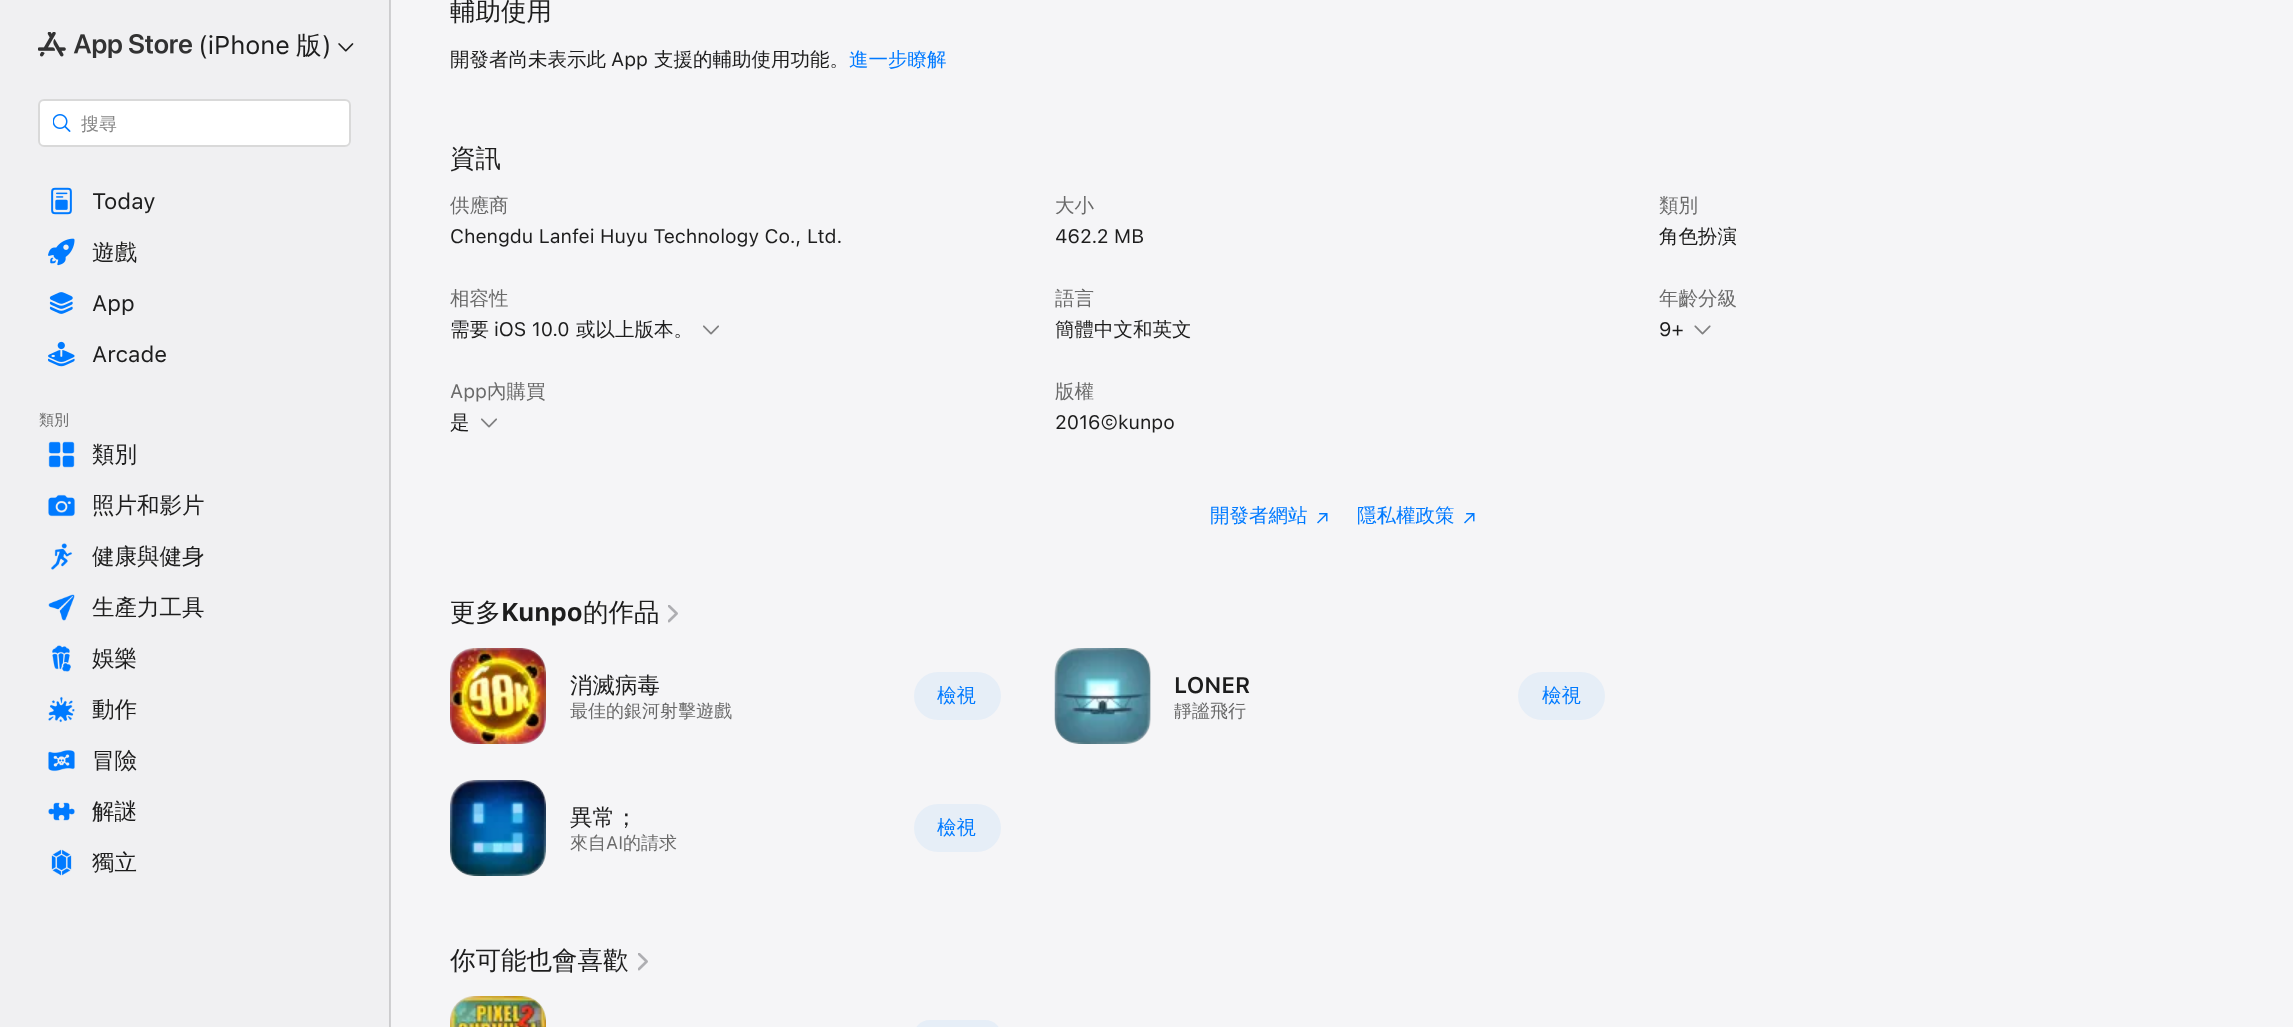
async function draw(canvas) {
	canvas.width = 2293;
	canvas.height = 1027;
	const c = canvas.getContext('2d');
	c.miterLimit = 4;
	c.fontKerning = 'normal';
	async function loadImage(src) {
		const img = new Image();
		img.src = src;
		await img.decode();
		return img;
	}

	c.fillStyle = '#f5f5f7';
	c.fillRect(0, 0, 2293, 1027);
	for (const [x, y, w, h, color] of [
		[390, 0, 1, 1027, '#d0d0d2'],
		[0, 0, 389, 1027, '#f0f0f2'],
		[389, 0, 1, 1027, '#ccccce'],
	]) {
		c.fillStyle = color;
		c.fillRect(x, y, w, h);
	}
	c.drawImage(await loadImage('img1.png'), 38, 32, 154, 26);
	c.font = '25.5px SF';
	c.fillStyle = '#1d1d1d';
	c.fillText('(iPhone', 198, 54);
	c.font = '500 25.5px WenQuanYi Zen Hei';
	c.fillText('版', 296, 54);
	c.font = '25.5px SF';
	c.fillText(')', 322, 54);
	c.drawImage(await loadImage('img2.png'), 338, 43, 16, 9);
	c.fillStyle = '#fff';
	c.beginPath();
	c.roundRect(38, 99, 313, 48, 6);
	c.fill();
	c.beginPath();
	c.roundRect(39, 100, 311, 46, 5);
	c.strokeStyle = '#00000026';
	c.lineWidth = 2;
	c.stroke();
	c.drawImage(await loadImage('img3.png'), 53, 114, 18, 18);
	c.font = '500 18px WenQuanYi Zen Hei';
	c.fillStyle = '#858585';
	c.fillText('搜尋', 81, 130);
	c.drawImage(await loadImage('img4.png'), 51, 187, 21, 28);
	c.font = '22.5px SF';
	c.fillStyle = '#1d1d1d';
	c.fillText('Today', 92, 209);
	c.drawImage(await loadImage('img5.png'), 48, 238, 27, 28);
	c.font = '500 22.5px WenQuanYi Zen Hei';
	c.fillText('遊戲', 92, 260);
	c.drawImage(await loadImage('img6.png'), 49, 292, 24, 22);
	c.font = '22.5px SF';
	c.fillText('App', 92, 311);
	c.drawImage(await loadImage('img7.png'), 48, 341, 27, 26);
	c.fillText('Arcade', 92, 362);
	c.font = '500 15px WenQuanYi Zen Hei';
	c.fillStyle = '#6a6a6a';
	c.fillText('類別', 39, 425);
	c.drawImage(await loadImage('img8.png'), 48, 441, 27, 27);
	c.font = '500 22.5px WenQuanYi Zen Hei';
	c.fillStyle = '#1d1d1d';
	c.fillText('類別', 92, 462);
	c.drawImage(await loadImage('img9.png'), 48, 494, 27, 23);
	c.fillText('照片和影片', 92, 513);
	c.drawImage(await loadImage('img10.png'), 51, 543, 22, 27);
	c.fillText('健康與健身', 92, 564);
	c.drawImage(await loadImage('img11.png'), 48, 594, 27, 27);
	c.fillText('生產力工具', 92, 615);
	c.drawImage(await loadImage('img12.png'), 52, 645, 19, 27);
	c.fillText('娛樂', 92, 666);
	c.drawImage(await loadImage('img13.png'), 48, 696, 27, 27);
	c.fillText('動作', 92, 717);
	c.drawImage(await loadImage('img14.png'), 48, 750, 27, 22);
	c.fillText('冒險', 92, 768);
	c.drawImage(await loadImage('img15.png'), 48, 802, 27, 19);
	c.fillText('解謎', 92, 819);
	c.drawImage(await loadImage('img16.png'), 51, 849, 21, 27);
	c.fillText('獨立', 92, 870);
	c.font = '500 25.5px WenQuanYi Zen Hei';
	c.fillText('輔助使用', 450, 20);
	c.font = '500 19.5px WenQuanYi Zen Hei';
	c.fillText('開發者尚未表示此', 450, 66);
	c.font = '19.5px SF';
	c.fillText('App', 611, 66);
	c.font = '500 19.5px WenQuanYi Zen Hei';
	c.fillText('支援的輔助使用功能。', 654, 66);
	c.fillStyle = '#007aff';
	c.fillText('進一步瞭解', 849, 66);
	c.font = '500 25.5px WenQuanYi Zen Hei';
	c.fillStyle = '#1d1d1d';
	c.fillText('資訊', 450, 167);
	c.font = '500 19.5px WenQuanYi Zen Hei';
	c.fillStyle = '#6a6a6a';
	c.fillText('供應商', 450, 212);
	c.font = '19.5px SF';
	c.fillStyle = '#1d1d1d';
	c.fillText('Chengdu Lanfei Huyu Technology Co., Ltd.', 450, 243);
	c.font = '500 19.5px WenQuanYi Zen Hei';
	c.fillStyle = '#6a6a6a';
	c.fillText('大小', 1055, 212);
	c.font = '19.5px SF';
	c.fillStyle = '#1d1d1d';
	c.fillText('462.2 MB', 1055, 243);
	c.font = '500 19.5px WenQuanYi Zen Hei';
	c.fillStyle = '#6a6a6a';
	c.fillText('類別', 1659, 212);
	c.fillStyle = '#1d1d1d';
	c.fillText('角色扮演', 1659, 243);
	c.fillStyle = '#6a6a6a';
	c.fillText('相容性', 450, 305);
	c.fillStyle = '#1d1d1d';
	c.fillText('需要', 450, 336);
	c.font = '19.5px SF';
	c.fillText('iOS 10.0', 494, 336);
	c.font = '500 19.5px WenQuanYi Zen Hei';
	c.fillText('或以上版本。', 576, 336);
	c.drawImage(await loadImage('img17.png'), 703, 325, 16, 10);
	c.fillStyle = '#6a6a6a';
	c.fillText('語言', 1055, 305);
	c.fillStyle = '#1d1d1d';
	c.fillText('簡體中文和英文', 1055, 336);
	c.fillStyle = '#6a6a6a';
	c.fillText('年齡分級', 1659, 305);
	c.font = '19.5px SF';
	c.fillStyle = '#1d1d1d';
	c.fillText('9+', 1659, 336);
	c.drawImage(await loadImage('img18.png'), 1694, 325, 17, 10);
	c.fillStyle = '#6a6a6a';
	c.fillText('App', 450, 398);
	c.font = '500 19.5px WenQuanYi Zen Hei';
	c.fillText('內購買', 487, 398);
	c.fillStyle = '#1d1d1d';
	c.fillText('是', 450, 429);
	c.drawImage(await loadImage('img17.png'), 481, 418, 16, 10);
	c.fillStyle = '#6a6a6a';
	c.fillText('版權', 1055, 398);
	c.font = '19.5px SF';
	c.fillStyle = '#1d1d1d';
	c.fillText('2016©kunpo', 1055, 429);
	c.font = '500 19.5px WenQuanYi Zen Hei';
	c.fillStyle = '#007aff';
	c.fillText('開發者網站', 1210, 522);
	c.drawImage(await loadImage('img19.png'), 1317, 513, 11, 11);
	c.fillText('隱私權政策', 1357, 522);
	c.drawImage(await loadImage('img19.png'), 1464, 513, 11, 11);
	c.font = '500 25.5px WenQuanYi Zen Hei';
	c.fillStyle = '#1d1d1d';
	c.fillText('更多', 450, 621);
	c.font = 'bold 25.5px SF';
	c.fillText('Kunpo', 501, 621);
	c.font = '500 25.5px WenQuanYi Zen Hei';
	c.fillText('的作品', 583, 621);
	c.drawImage(await loadImage('img20.png'), 668, 605, 10, 18);
	c.drawImage(await loadImage('img21.png'), 450, 648, 96, 96);
	c.beginPath();
	c.roundRect(451, 649, 94, 94, 23);
	c.strokeStyle = '#8080801a';
	c.stroke();
	c.font = '500 22.5px WenQuanYi Zen Hei';
	c.fillText('消滅病毒', 570, 693);
	c.font = '500 18px WenQuanYi Zen Hei';
	c.fillStyle = '#6a6a6a';
	c.fillText('最佳的銀河射擊遊戲', 570, 717);
	c.fillStyle = '#e6eef7';
	c.beginPath();
	c.roundRect(914, 672, 87, 48, 24);
	c.fill();
	c.font = '500 19.5px WenQuanYi Zen Hei';
	c.fillStyle = '#007aff';
	c.fillText('檢視', 937, 702);
	c.drawImage(await loadImage('img22.png'), 1054, 648, 97, 96);
	c.beginPath();
	c.roundRect(1056, 649, 94, 94, 23);
	c.stroke();
	c.font = '600 22.5px SF';
	c.fillStyle = '#1d1d1d';
	c.fillText('LONER', 1174, 693);
	c.font = '500 18px WenQuanYi Zen Hei';
	c.fillStyle = '#6a6a6a';
	c.fillText('靜謐飛行', 1174, 717);
	c.fillStyle = '#e6eef7';
	c.beginPath();
	c.roundRect(1518, 672, 87, 48, 24);
	c.fill();
	c.font = '500 19.5px WenQuanYi Zen Hei';
	c.fillStyle = '#007aff';
	c.fillText('檢視', 1542, 702);
	c.drawImage(await loadImage('img23.png'), 450, 780, 96, 96);
	c.beginPath();
	c.roundRect(451, 781, 94, 94, 23);
	c.stroke();
	c.font = '500 22.5px WenQuanYi Zen Hei';
	c.fillStyle = '#1d1d1d';
	c.fillText('異常；', 570, 825);
	c.font = '500 18px WenQuanYi Zen Hei';
	c.fillStyle = '#6a6a6a';
	c.fillText('來自', 570, 849);
	c.font = '18px SF';
	c.fillText('AI', 606, 849);
	c.font = '500 18px WenQuanYi Zen Hei';
	c.fillText('的請求', 623, 849);
	c.fillStyle = '#e6eef7';
	c.beginPath();
	c.roundRect(914, 804, 87, 48, 24);
	c.fill();
	c.font = '500 19.5px WenQuanYi Zen Hei';
	c.fillStyle = '#007aff';
	c.fillText('檢視', 937, 834);
	c.font = '500 25.5px WenQuanYi Zen Hei';
	c.fillStyle = '#1d1d1d';
	c.fillText('你可能也會喜歡', 450, 969);
	c.drawImage(await loadImage('img20.png'), 638, 953, 10, 18);
	c.drawImage(await loadImage('img24.png'), 450, 996, 96, 31);
	c.beginPath();
	c.roundRect(451, 997, 94, 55, 23);
	c.stroke();
	c.fillStyle = '#e6eef7';
	c.beginPath();
	c.roundRect(914, 1020, 87, 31, 24);
	c.fill();
}

draw(document.querySelector('canvas'));
